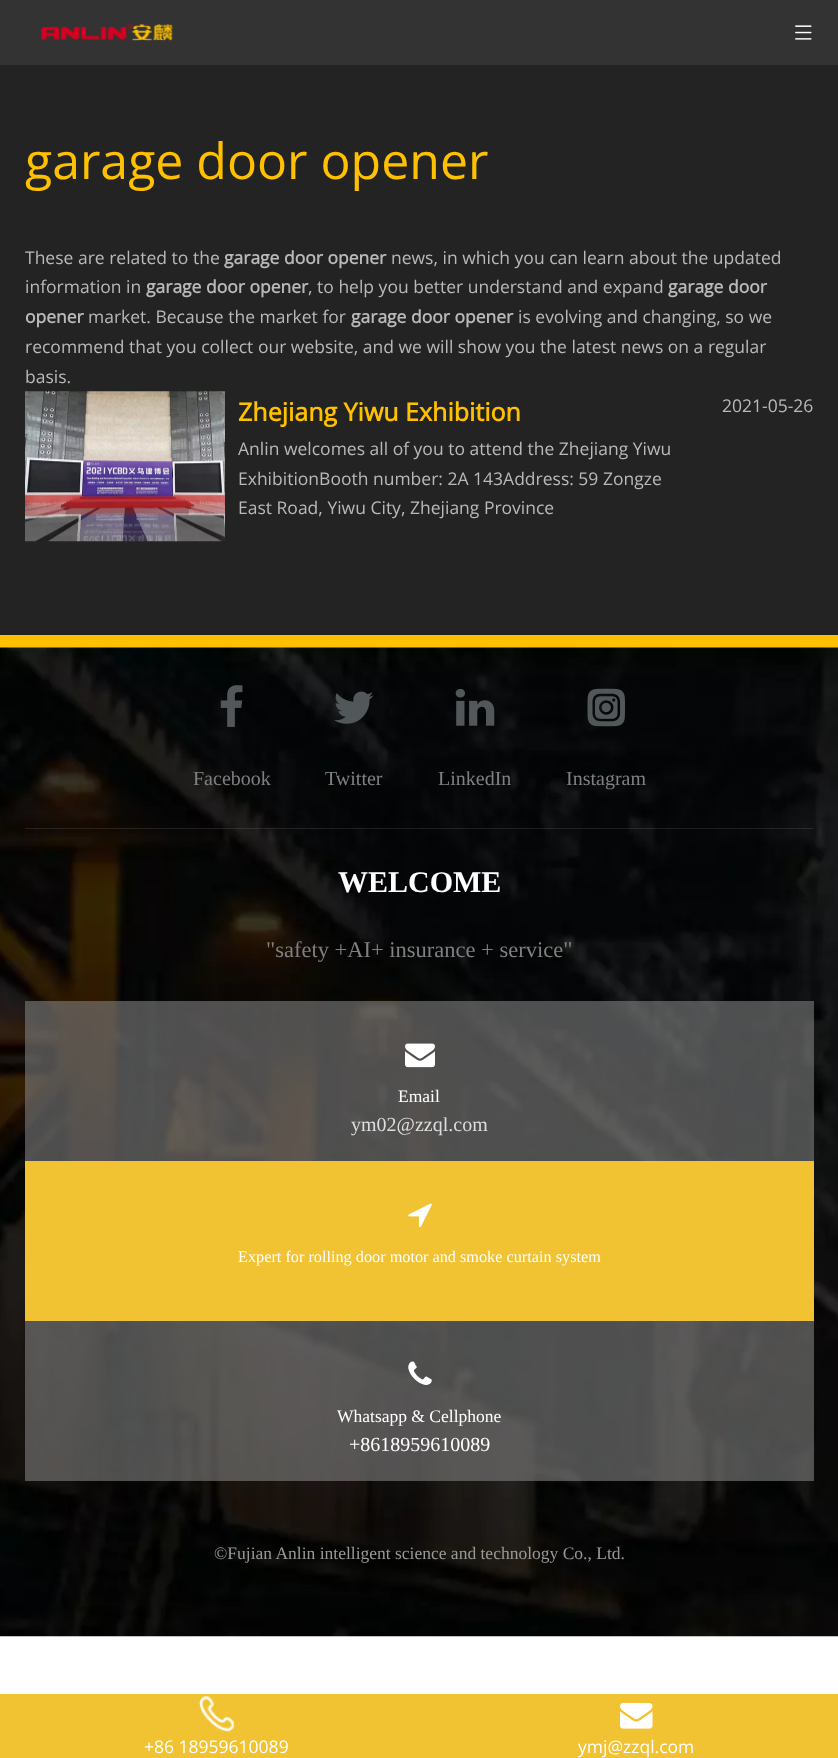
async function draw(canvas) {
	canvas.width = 838;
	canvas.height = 1758;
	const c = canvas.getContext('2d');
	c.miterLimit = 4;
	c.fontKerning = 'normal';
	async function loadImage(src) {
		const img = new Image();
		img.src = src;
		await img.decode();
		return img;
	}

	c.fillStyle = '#fff';
	c.fillRect(0, 0, 838, 1758);
	c.fillStyle = '#333';
	c.fillRect(0, 0, 838, 65);
	c.drawImage(await loadImage('img1.png'), 41, 23, 132, 18);
	c.drawImage(await loadImage('img2.png'), 795, 25, 17, 15);
	c.fillStyle = '#232323';
	c.fillRect(0, 65, 838, 570);
	c.font = '50px Open Sans';
	c.fillStyle = '#ffc000';
	c.fillText('garage door opener', 25, 179);
	c.font = '17.5px Open Sans';
	c.fillStyle = '#bab9b9';
	c.fillText('These are related to the', 25, 264);
	c.font = 'bold 17.5px Open Sans';
	c.fillText('garage door opener', 224, 264);
	c.font = '17.5px Open Sans';
	c.fillText('news, in which you can learn about the updated', 391, 264);
	c.fillText('information in', 25, 293);
	c.font = 'bold 17.5px Open Sans';
	c.fillText('garage door opener', 146, 293);
	c.font = '17.5px Open Sans';
	c.fillText(', to help you better understand and expand', 308, 293);
	c.font = 'bold 17.5px Open Sans';
	c.fillText('garage door', 668, 293);
	c.fillText('opener', 25, 323);
	c.font = '17.5px Open Sans';
	c.fillText('market. Because the market for', 88, 323);
	c.font = 'bold 17.5px Open Sans';
	c.fillText('garage door opener', 351, 323);
	c.font = '17.5px Open Sans';
	for (const [text, x, y] of [
		['is evolving and changing, so we', 518, 323],
		['recommend that you collect our website, and we will show you the latest news on a regular', 25, 353],
		['basis.', 25, 383],
	]) {
		c.fillText(text, x, y);
	}
	c.drawImage(await loadImage('img3.png'), 25, 391, 200, 151);
	c.font = 'bold 25px Open Sans';
	c.fillStyle = '#ffc000';
	c.fillText('Zhejiang Yiwu Exhibition', 238, 421);
	c.font = '17.5px Open Sans';
	c.fillStyle = '#bab9b9';
	for (const [text, x, y] of [
		['Anlin welcomes all of you to attend the Zhejiang Yiwu', 238, 455],
		['ExhibitionBooth number: 2A 143Address: 59 Zongze', 238, 485],
		['East Road, Yiwu City, Zhejiang Province', 238, 514],
		['2021-05-26', 722, 412],
	]) {
		c.fillText(text, x, y);
	}
	c.fillStyle = '#ffc000';
	c.fillRect(0, 635, 838, 13);
	c.drawImage(await loadImage('img4.png'), 0, 647, 838, 990);
	c.fillStyle = '#ffffff1a';
	c.fillRect(25, 828, 789, 1);
	c.drawImage(await loadImage('img5.png'), 220, 685, 23, 42);
	c.font = '20px Liberation Serif';
	c.fillStyle = '#808080';
	c.fillText('Facebook', 193, 785);
	c.drawImage(await loadImage('img6.png'), 334, 691, 40, 33);
	c.fillText('Twitter', 325, 785);
	c.drawImage(await loadImage('img7.png'), 455, 688, 40, 38);
	c.fillText('LinkedIn', 438, 785);
	c.drawImage(await loadImage('img8.png'), 587, 688, 38, 39);
	c.fillText('Instagram', 566, 785);
	c.font = 'bold 30px Liberation Serif';
	c.fillStyle = '#fff';
	c.fillText('WELCOME', 338, 892);
	c.font = '22.5px Liberation Serif';
	c.fillStyle = '#808080';
	c.fillText('"safety +AI+ insurance + service"', 266, 957);
	c.fillStyle = '#80808099';
	c.fillRect(25, 1001, 789, 160);
	c.drawImage(await loadImage('img9.png'), 405, 1043, 30, 25);
	c.font = '17.5px Liberation Serif';
	c.fillStyle = '#fff';
	c.fillText('Email', 398, 1102);
	c.font = '20px Liberation Serif';
	c.fillStyle = '#ddd';
	c.fillText('ym02@zzql.com', 351, 1131);
	c.fillStyle = '#f1c232';
	c.fillRect(25, 1161, 789, 160);
	c.drawImage(await loadImage('img10.png'), 408, 1203, 24, 25);
	c.font = '16.25px Liberation Serif';
	c.fillStyle = '#fff';
	c.fillText('Expert for rolling door motor and smoke curtain system', 238, 1262);
	c.fillStyle = '#80808099';
	c.fillRect(25, 1321, 789, 160);
	c.drawImage(await loadImage('img11.png'), 408, 1361, 24, 24);
	c.font = '17.5px Liberation Serif';
	c.fillStyle = '#fff';
	c.fillText('Whatsapp & Cellphone', 337, 1422);
	c.font = '20px Liberation Serif';
	c.fillText('+8618959610089', 349, 1451);
	c.font = '17.5px Liberation Serif';
	c.fillStyle = '#999';
	c.fillText('©Fujian Anlin intelligent science and technology Co., Ltd.', 214, 1559);
	c.fillStyle = '#f1c232';
	c.fillRect(0, 1694, 838, 64);
	c.drawImage(await loadImage('img12.png'), 198, 1696, 36, 36);
	c.font = '17.5px Open Sans';
	c.fillStyle = '#fff';
	c.fillText('+86 18959610089', 144, 1753);
	c.drawImage(await loadImage('img13.png'), 620, 1703, 33, 26);
	c.fillText('ymj@zzql.com', 578, 1753);
}

draw(document.querySelector('canvas'));
